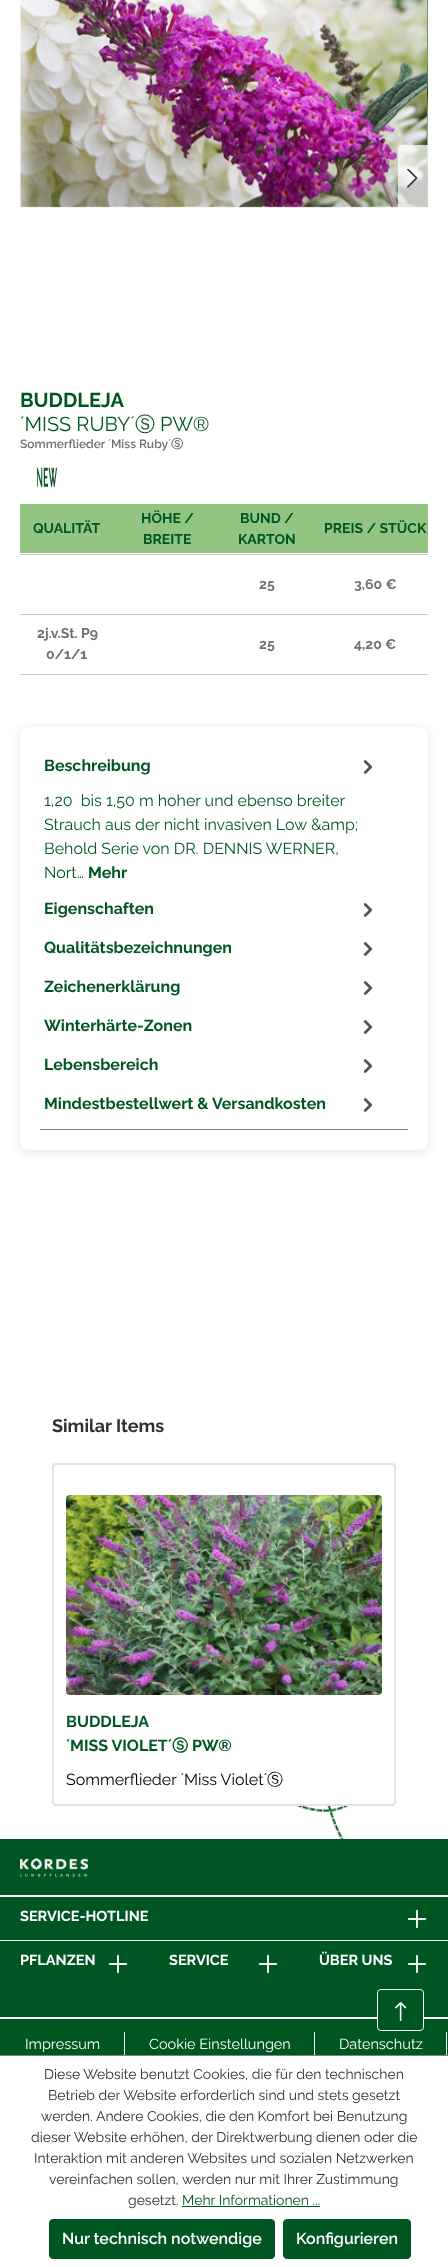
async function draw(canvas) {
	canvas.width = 448;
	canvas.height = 2267;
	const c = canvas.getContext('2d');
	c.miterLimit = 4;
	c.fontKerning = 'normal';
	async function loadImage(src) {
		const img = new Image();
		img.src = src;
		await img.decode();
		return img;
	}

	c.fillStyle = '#fff';
	c.fillRect(0, 0, 448, 2267);
	c.drawImage(await loadImage('img1.png'), 20, 0, 408, 208);
	c.save();
	c.beginPath();
	c.rect(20, 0, 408, 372);
	c.clip();
	c.fillStyle = '#ffffff80';
	c.filter = 'blur(5.5px)';
	c.beginPath();
	c.rect(-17, -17, 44, 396);
	c.fill();
	c.filter = 'none';
	c.restore();
	c.drawImage(await loadImage('img2.png'), 427, 0, 1, 208);
	c.fillStyle = '#ffffffbf';
	c.beginPath();
	c.roundRect(398, 145, 30, 65, [4, 0, 0, 4]);
	c.fill();
	c.drawImage(await loadImage('img3.png'), 407, 169, 11, 19);
	c.font = 'bold 20px Raleway';
	c.fillStyle = '#005622';
	c.fillText('BUDDLEJA', 20, 407);
	c.font = '20px Raleway';
	c.fillText('´MISS RUBY´', 20, 431);
	c.font = '500 20px WenQuanYi Zen Hei';
	c.fillText('Ⓢ', 135, 431);
	c.font = '20px Raleway';
	c.fillText('PW®', 160, 431);
	c.font = '600 12px Raleway';
	c.fillStyle = '#707070';
	c.fillText('Sommerflieder ´Miss Ruby´', 20, 448);
	c.font = 'bold 12px WenQuanYi Zen Hei';
	c.fillText('Ⓢ', 171, 448);
	c.drawImage(await loadImage('img4.png'), 37, 467, 20, 20);
	c.fillStyle = '#92c581';
	c.fillRect(20, 504, 408, 49);
	c.font = 'bold 14px Raleway';
	c.fillStyle = '#005622';
	for (const [text, x, y] of [
		['QUALITÄT', 33, 533],
		['HÖHE /', 141, 523],
		['BREITE', 143, 544],
		['BUND /', 240, 523],
		['KARTON', 238, 544],
	]) {
		c.fillText(text, x, y);
	}
	c.fillStyle = '#c7c7c7';
	c.fillRect(20, 554, 408, 1);
	c.fillStyle = '#005622';
	c.fillText('PREIS / STÜCK', 324, 533);
	c.fillStyle = '#707070';
	c.fillText('25', 259, 589);
	c.fillStyle = '#c7c7c7';
	c.fillRect(20, 614, 408, 1);
	c.fillStyle = '#707070';
	for (const [text, x, y] of [
		['3,60 €', 354, 589],
		['2j.v.St. P9', 37, 638],
		['0/1/1', 46, 659],
		['25', 259, 649],
	]) {
		c.fillText(text, x, y);
	}
	c.fillStyle = '#c7c7c7';
	c.fillRect(20, 674, 408, 1);
	c.fillStyle = '#707070';
	c.fillText('4,20 €', 354, 649);
	c.save();
	c.beginPath();
	c.moveTo(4, 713);
	c.lineTo(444, 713);
	c.lineTo(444, 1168);
	c.lineTo(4, 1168);
	c.closePath();
	c.moveTo(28, 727);
	c.lineTo(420, 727);
	c.bezierCurveTo(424.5, 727, 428, 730.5, 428, 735);
	c.lineTo(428, 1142);
	c.bezierCurveTo(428, 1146.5, 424.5, 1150, 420, 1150);
	c.lineTo(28, 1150);
	c.bezierCurveTo(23.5, 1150, 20, 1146.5, 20, 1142);
	c.lineTo(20, 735);
	c.bezierCurveTo(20, 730.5, 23.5, 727, 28, 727);
	c.closePath();
	c.clip('evenodd');
	c.fillStyle = '#e3e3e3';
	c.filter = 'blur(5px)';
	c.beginPath();
	c.roundRect(20, 729, 408, 423, 8);
	c.fill();
	c.filter = 'none';
	c.restore();
	c.fillStyle = '#798490';
	c.fillRect(40, 1129, 368, 1);
	c.font = 'bold 16px Raleway';
	c.fillStyle = '#005622';
	c.fillText('Beschreibung', 44, 771);
	c.drawImage(await loadImage('img5.png'), 363, 760, 10, 14);
	c.font = '16px Raleway';
	for (const [text, x, y] of [
		['1,20  bis 1,50 m hoher und ebenso breiter', 44, 806],
		['Strauch aus der nicht invasiven Low &amp;', 44, 830],
		['Behold Serie von DR. DENNIS WERNER,', 44, 854],
		['Nort…', 44, 878],
	]) {
		c.fillText(text, x, y);
	}
	c.font = 'bold 16px Raleway';
	c.fillText('Mehr', 88, 878);
	c.fillText('Eigenschaften', 44, 914);
	c.drawImage(await loadImage('img5.png'), 363, 903, 10, 14);
	c.fillText('Qualitätsbezeichnungen', 44, 953);
	c.drawImage(await loadImage('img5.png'), 363, 942, 10, 14);
	c.fillText('Zeichenerklärung', 44, 992);
	c.drawImage(await loadImage('img5.png'), 363, 981, 10, 14);
	c.fillText('Winterhärte-Zonen', 44, 1031);
	c.drawImage(await loadImage('img5.png'), 363, 1020, 10, 14);
	c.fillText('Lebensbereich', 44, 1070);
	c.drawImage(await loadImage('img5.png'), 363, 1059, 10, 14);
	c.fillText('Mindestbestellwert & Versandkosten', 44, 1109);
	c.drawImage(await loadImage('img5.png'), 363, 1098, 10, 14);
	c.font = 'bold 18px Raleway';
	c.fillStyle = '#2b3136';
	c.fillText('Similar Items', 52, 1432);
	c.beginPath();
	c.roundRect(53, 1464, 342, 341, 3);
	c.strokeStyle = '#e3e3e3';
	c.lineWidth = 2;
	c.stroke();
	c.drawImage(await loadImage('img6.png'), 66, 1495, 316, 200);
	c.font = 'bold 16px Raleway';
	c.fillStyle = '#005622';
	c.fillText('BUDDLEJA', 66, 1727);
	c.fillText('´MISS VIOLET´', 66, 1751);
	c.font = 'bold 16px WenQuanYi Zen Hei';
	c.fillText('Ⓢ', 172, 1751);
	c.font = 'bold 16px Raleway';
	c.fillText('PW®', 192, 1751);
	c.font = '16px Raleway';
	c.fillStyle = '#000';
	c.fillText('Sommerflieder ´Miss Violet´', 66, 1785);
	c.font = '500 16px WenQuanYi Zen Hei';
	c.fillText('Ⓢ', 267, 1785);
	c.fillStyle = '#005622';
	c.fillRect(0, 1839, 448, 216);
	c.drawImage(await loadImage('img7.png'), 211, 1806, 158, 33);
	c.drawImage(await loadImage('img8.png'), 20, 1858, 68, 19);
	c.fillStyle = '#fff';
	c.fillRect(0, 1895, 448, 2);
	c.font = 'bold 14.5px Raleway';
	c.fillText('SERVICE-HOTLINE', 20, 1921);
	c.drawImage(await loadImage('img9.png'), 407, 1909, 20, 20);
	c.fillRect(0, 1940, 448, 1);
	c.fillText('PFLANZEN', 20, 1965);
	c.drawImage(await loadImage('img9.png'), 108, 1954, 20, 20);
	c.fillText('SERVICE', 169, 1965);
	c.drawImage(await loadImage('img9.png'), 258, 1954, 20, 20);
	c.fillText('ÜBER UNS', 319, 1965);
	c.drawImage(await loadImage('img9.png'), 407, 1954, 20, 20);
	c.fillRect(0, 2017, 448, 2);
	c.fillRect(124, 2032, 1, 24);
	c.font = '14.5px Raleway';
	c.fillText('Impressum', 25, 2049);
	c.fillRect(314, 2032, 1, 24);
	c.fillText('Cookie Einstellungen', 149, 2049);
	c.fillRect(446, 2032, 1, 24);
	c.fillText('Datenschutz', 339, 2049);
	c.beginPath();
	c.roundRect(377.5, 1989.5, 46, 41, 3.5);
	c.strokeStyle = '#fff';
	c.lineWidth = 1;
	c.stroke();
	c.fillStyle = '#005622';
	c.beginPath();
	c.roundRect(378.5, 1990.5, 44, 39, 3.5);
	c.fill();
	c.strokeStyle = '#005622';
	c.stroke();
	c.drawImage(await loadImage('img10.png'), 395, 2002, 12, 19);
	c.fillStyle = '#798490';
	c.fillRect(0, 2055, 448, 1);
	c.font = '14px Raleway';
	c.fillStyle = '#2b3136';
	for (const [text, x, y] of [
		['Diese Website benutzt Cookies, die für den technischen', 44, 2079],
		['Betrieb der Website erforderlich sind und stets gesetzt', 48, 2100],
		['werden. Andere Cookies, die den Komfort bei Benutzung', 41, 2121],
		['dieser Website erhöhen, der Direktwerbung dienen oder die', 31, 2142],
		['Interaktion mit anderen Websites und sozialen Netzwerken', 34, 2163],
		['vereinfachen sollen, werden nur mit Ihrer Zustimmung', 49, 2184],
		['gesetzt.', 128, 2205],
	]) {
		c.fillText(text, x, y);
	}
	c.fillStyle = '#005622';
	c.fillText('Mehr Informationen ...', 182, 2205);
	c.fillRect(182, 2206, 138, 1);
	c.beginPath();
	c.roundRect(49.5, 2219.5, 225, 39, 3.5);
	c.fill();
	c.stroke();
	c.font = '600 16px Raleway';
	c.fillStyle = '#fff';
	c.fillText('Nur technisch notwendige', 62, 2244);
	c.fillStyle = '#005622';
	c.beginPath();
	c.roundRect(283.5, 2219.5, 127, 39, 3.5);
	c.fill();
	c.stroke();
	c.fillStyle = '#fff';
	c.fillText('Konfigurieren', 296, 2244);
}

draw(document.querySelector('canvas'));
